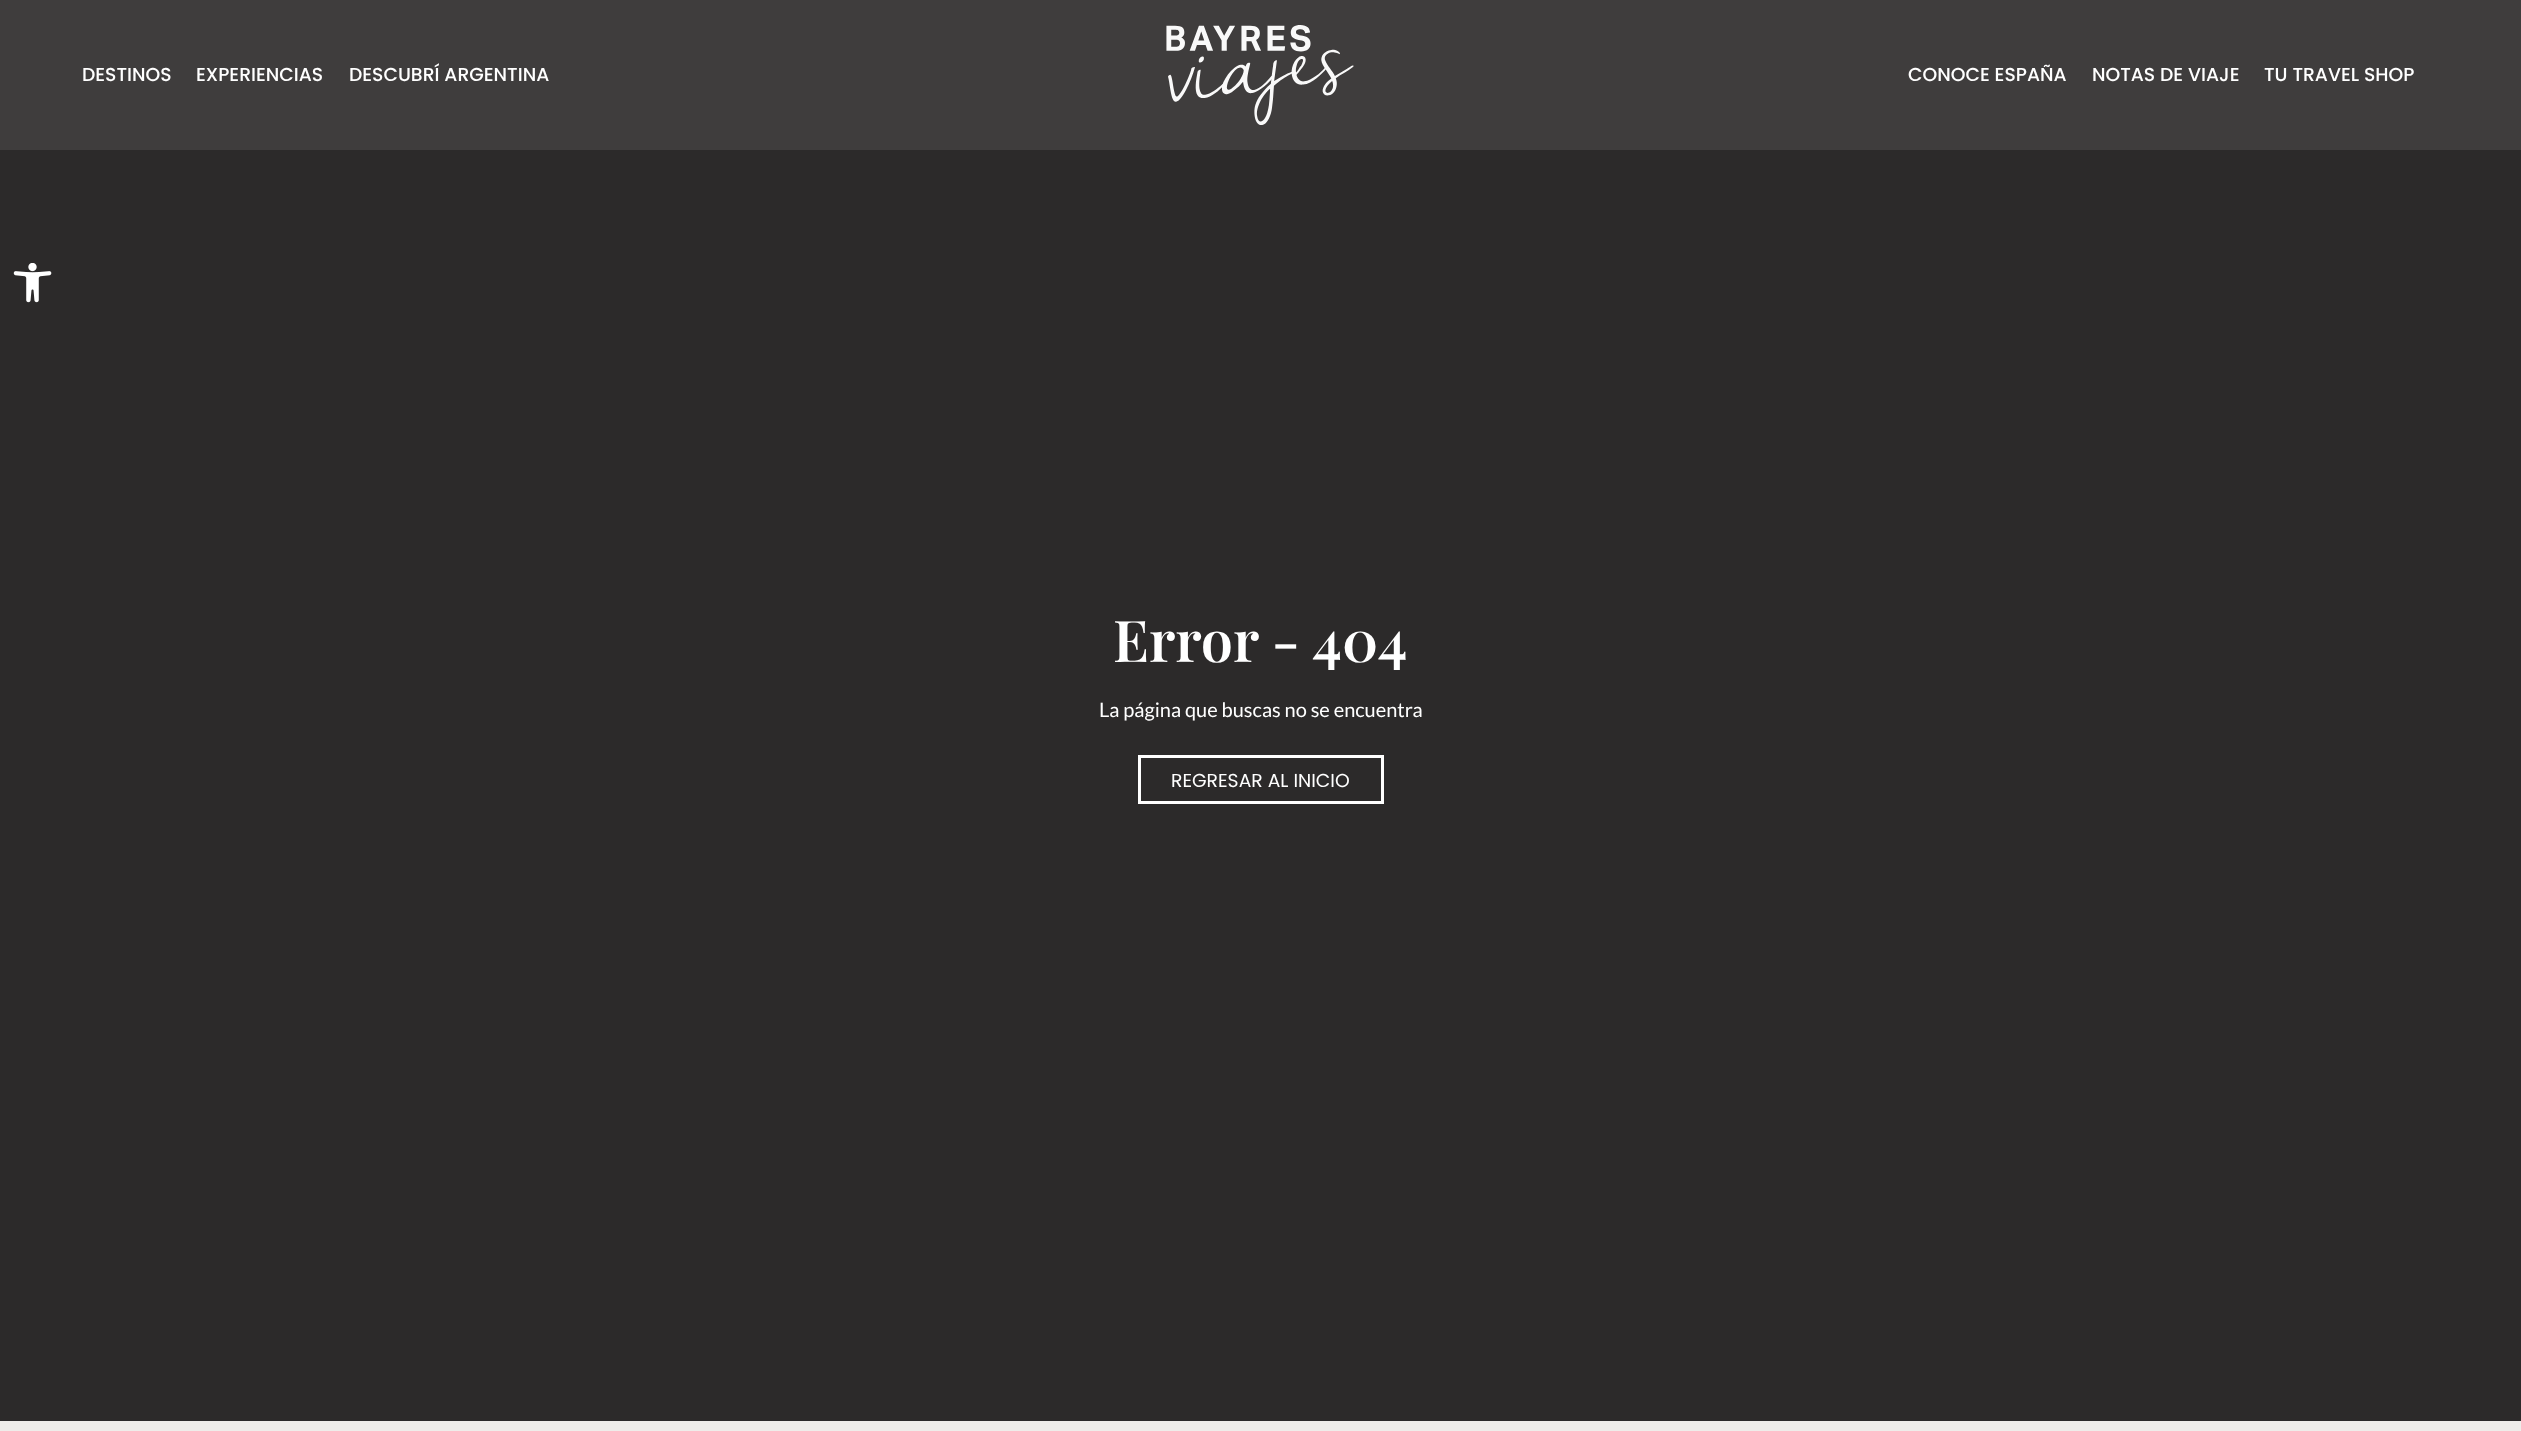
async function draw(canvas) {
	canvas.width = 2521;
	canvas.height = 1431;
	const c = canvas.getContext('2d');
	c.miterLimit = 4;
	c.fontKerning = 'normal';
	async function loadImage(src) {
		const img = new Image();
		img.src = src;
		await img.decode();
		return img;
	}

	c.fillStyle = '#2c2a2a';
	c.fillRect(0, 0, 2521, 1431);
	c.fillStyle = '#3f3d3d';
	c.fillRect(0, 0, 2521, 150);
	c.font = '500 18.75px Poppins';
	c.fillStyle = '#fff';
	for (const [text, x, y] of [
		['DESTINOS', 82, 81],
		['EXPERIENCIAS', 196, 81],
		['DESCUBRÍ ARGENTINA', 349, 81],
	]) {
		c.fillText(text, x, y);
	}
	c.drawImage(await loadImage('img1.png'), 1166, 25, 188, 100);
	for (const [text, x, y] of [
		['CONOCE ESPAÑA', 1908, 81],
		['NOTAS DE VIAJE', 2092, 81],
		['TU TRAVEL SHOP', 2264, 81],
	]) {
		c.fillText(text, x, y);
	}
	c.drawImage(await loadImage('img2.png'), 13, 263, 39, 40);
	c.font = '600 57.5px Playfair Display';
	c.fillText('Error - 404', 1113, 662);
	c.font = '20px Lato';
	c.fillText('La página que buscas no se encuentra', 1099, 717);
	c.strokeStyle = '#fff';
	c.lineWidth = 3;
	c.strokeRect(1139.5, 756.5, 243, 46);
	c.font = '18.75px Poppins';
	c.fillText('REGRESAR AL INICIO', 1171, 787);
	c.fillStyle = '#efedea';
	c.fillRect(0, 1421, 2521, 10);
}

draw(document.querySelector('canvas'));
